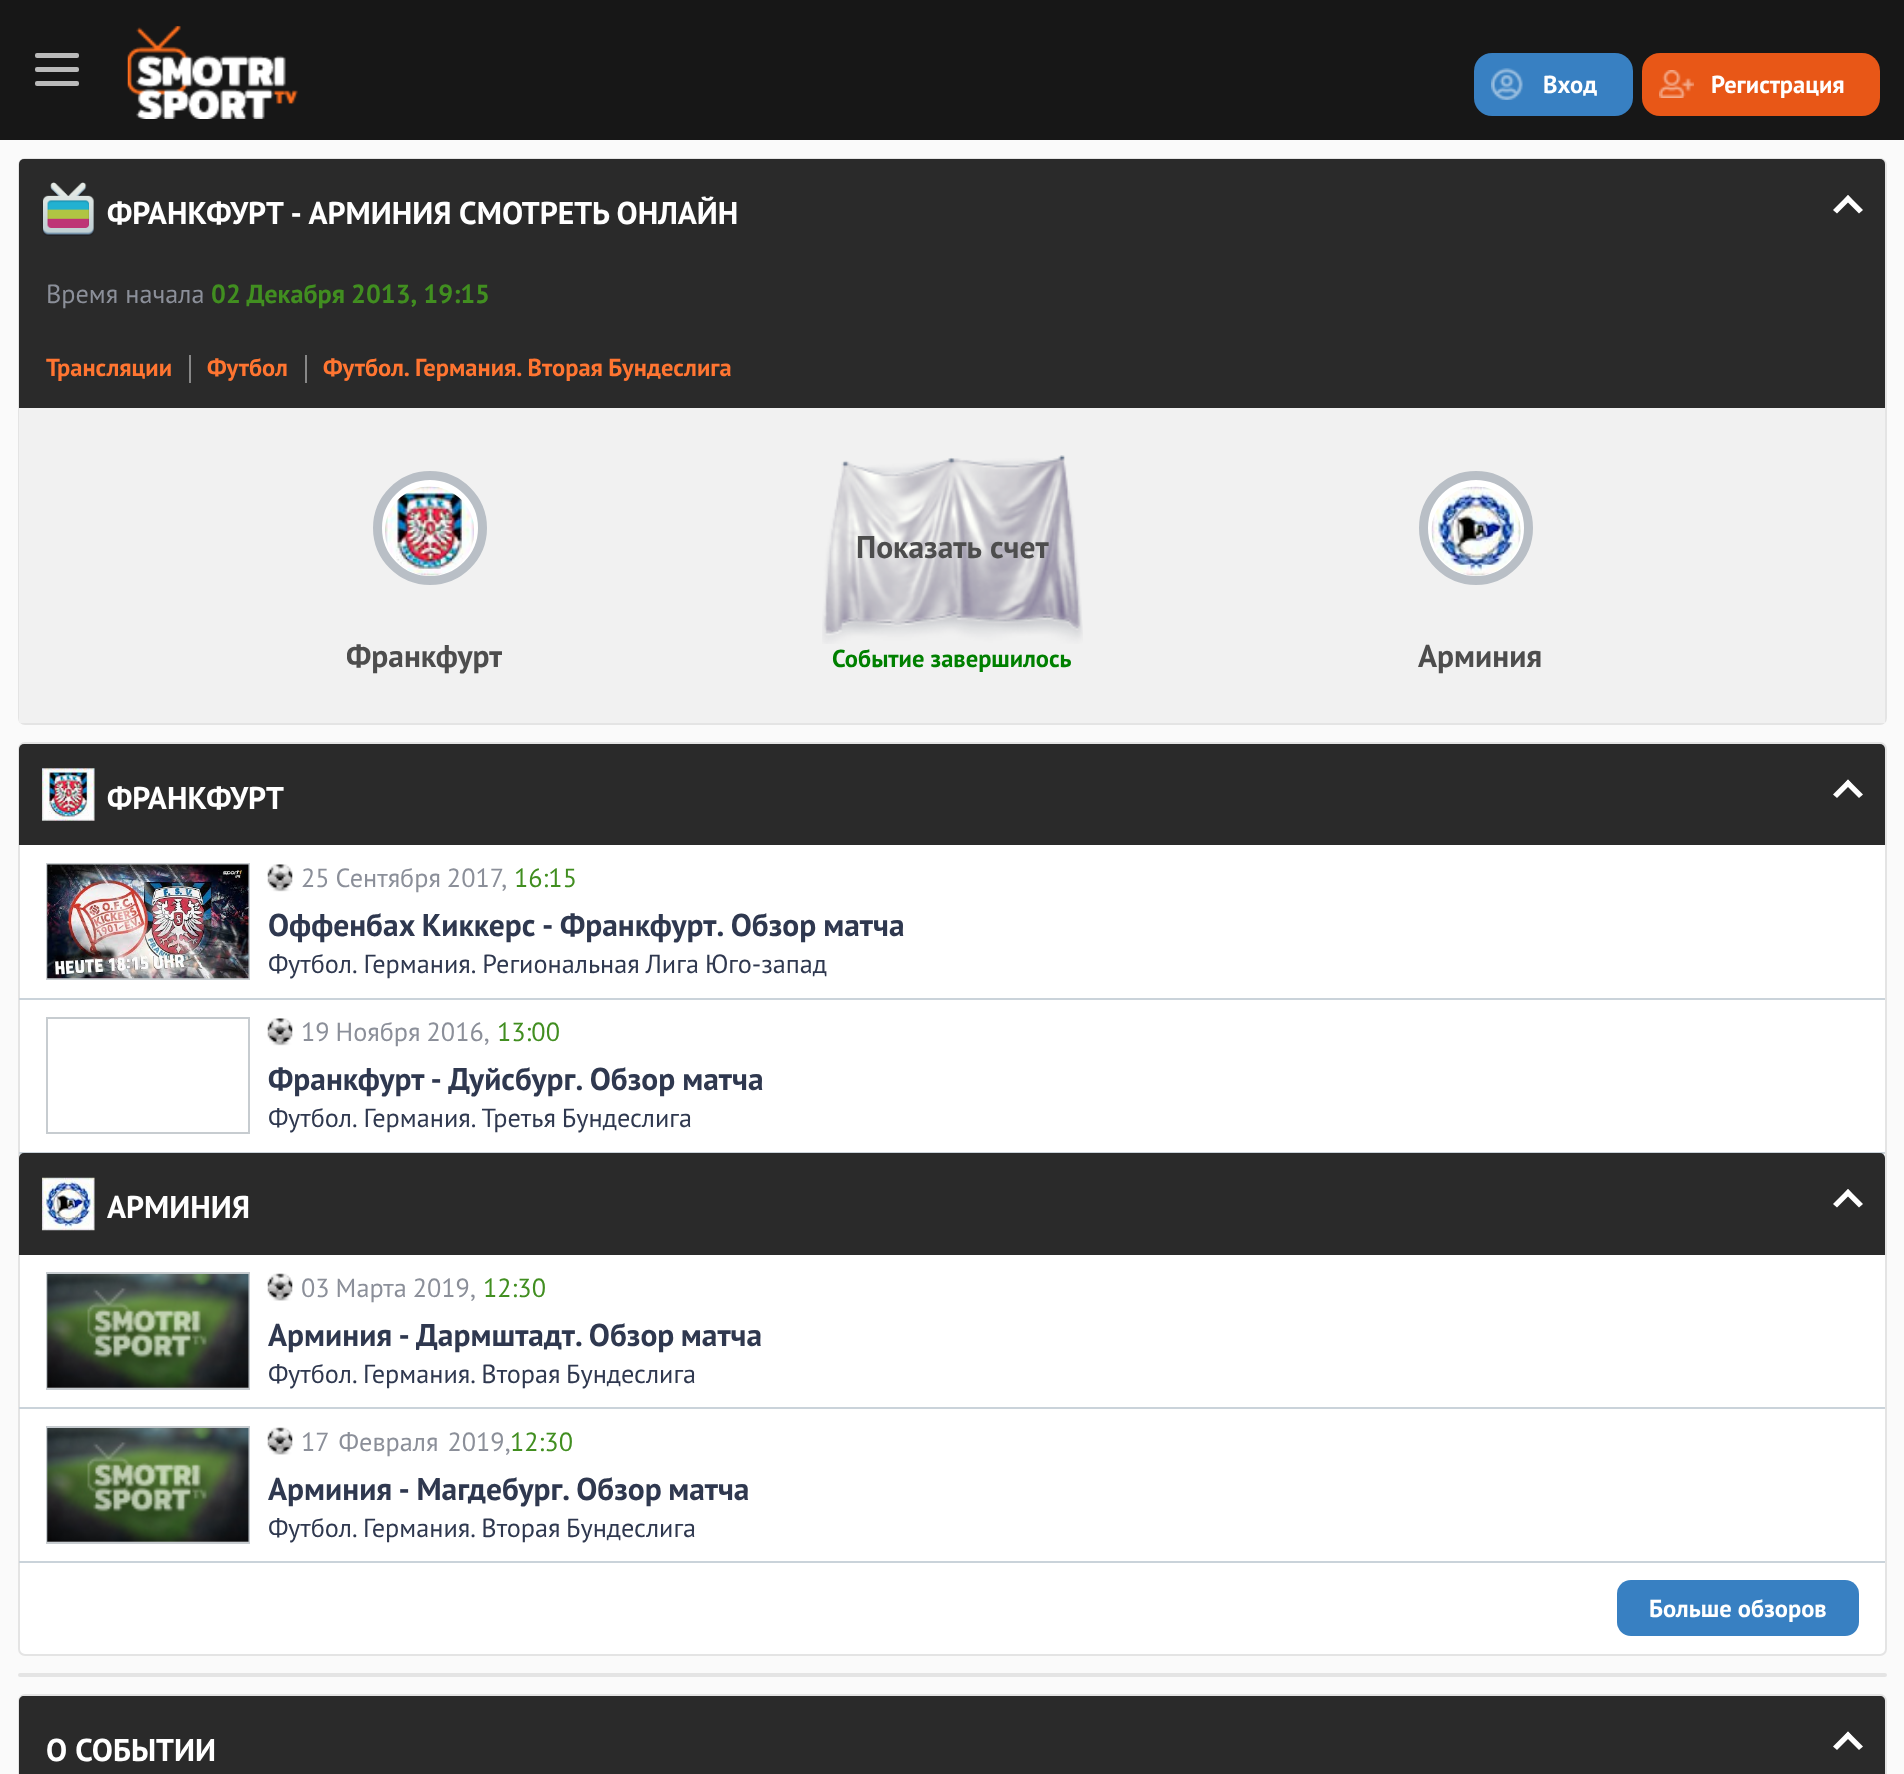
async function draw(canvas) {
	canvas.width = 1904;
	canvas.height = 1774;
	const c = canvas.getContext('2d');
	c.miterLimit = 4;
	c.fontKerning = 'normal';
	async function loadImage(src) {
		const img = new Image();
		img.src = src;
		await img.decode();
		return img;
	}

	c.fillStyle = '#fafafa';
	c.fillRect(0, 0, 1904, 1774);
	c.fillStyle = '#171717';
	c.fillRect(0, 0, 1904, 140);
	c.fillStyle = '#bababa';
	c.beginPath();
	c.roundRect(35, 67, 44, 5, 2);
	c.fill();
	c.beginPath();
	c.roundRect(35, 53, 44, 5, 2);
	c.fill();
	c.beginPath();
	c.roundRect(35, 81, 44, 5, 2);
	c.fill();
	c.drawImage(await loadImage('img1.png'), 127, 26, 171, 93);
	c.fillStyle = '#3880c2';
	c.beginPath();
	c.roundRect(1474, 53, 159, 63, 18);
	c.fill();
	c.drawImage(await loadImage('img2.png'), 1491, 68, 32, 32);
	c.font = 'bold 24.5px PT Sans';
	c.fillStyle = '#fff';
	c.fillText('Вход', 1543, 93);
	c.fillStyle = '#e85717';
	c.beginPath();
	c.roundRect(1642, 53, 238, 63, 18);
	c.fill();
	c.drawImage(await loadImage('img3.png'), 1659, 70, 35, 28);
	c.fillStyle = '#fff';
	c.fillText('Регистрация', 1711, 93);
	c.beginPath();
	c.roundRect(19, 159, 1867, 565, 6);
	c.strokeStyle = '#e4e4e4';
	c.lineWidth = 2;
	c.stroke();
	c.fillStyle = '#2a2a2a';
	c.beginPath();
	c.roundRect(19, 159, 1866, 102, [5, 5, 0, 0]);
	c.fill();
	c.drawImage(await loadImage('img4.png'), 42, 182, 52, 54);
	c.font = 'bold 31.5px PT Sans';
	c.fillStyle = '#fff';
	c.fillText('ФРАНКФУРТ - АРМИНИЯ СМОТРЕТЬ ОНЛАЙН', 107, 224);
	c.beginPath();
	c.moveTo(1848, 195);
	c.lineTo(1863, 210);
	c.lineTo(1859, 213.5);
	c.lineTo(1844.5, 199);
	c.closePath();
	c.fill();
	c.beginPath();
	c.moveTo(1848, 195);
	c.lineTo(1851.5, 199);
	c.lineTo(1837, 213.5);
	c.lineTo(1833, 210);
	c.closePath();
	c.fill();
	c.fillStyle = '#2a2a2a';
	c.fillRect(19, 261, 1866, 147);
	c.font = '26.25px PT Sans';
	c.fillStyle = '#8b8f99';
	c.fillText('Время начала', 46, 303);
	c.wordSpacing = '-0.5px';
	c.font = 'bold 26.25px PT Sans';
	c.fillStyle = '#418e20';
	c.fillText('02 Декабря 2013, 19:15', 211, 303);
	c.wordSpacing = '0px';
	c.font = 'bold 24.5px PT Sans';
	c.fillStyle = '#ff7531';
	c.fillText('Трансляции', 46, 376);
	c.fillStyle = '#878787';
	c.fillRect(189, 355, 2, 28);
	c.fillStyle = '#ff7531';
	c.fillText('Футбол', 207, 376);
	c.fillStyle = '#878787';
	c.fillRect(305, 355, 2, 28);
	c.wordSpacing = '-1px';
	c.fillStyle = '#ff7531';
	c.fillText('Футбол. Германия. Вторая Бундеслига', 323, 376);
	c.fillStyle = '#f1f1f1';
	c.fillRect(19, 408, 1866, 315);
	c.drawImage(await loadImage('img5.png'), 822, 455, 261, 189);
	c.wordSpacing = '1px';
	c.font = 'bold 31.5px PT Sans';
	c.fillStyle = '#4d4d4d';
	c.fillText('Показать счет', 856, 558);
	c.wordSpacing = '0px';
	c.font = 'bold 24.5px PT Sans';
	c.fillStyle = '#008000';
	c.fillText('Событие завершилось', 832, 667);
	c.fillStyle = '#fff';
	c.beginPath();
	c.arc(430, 528, 52.5, 0, 2 * Math.PI);
	c.fill();
	c.strokeStyle = '#b9bfc6';
	c.lineWidth = 9;
	c.stroke();
	c.drawImage(await loadImage('img6.png'), 385, 486, 89, 90);
	c.beginPath();
	c.arc(1476, 528, 52.5, 0, 2 * Math.PI);
	c.fill();
	c.stroke();
	c.drawImage(await loadImage('img7.png'), 1431, 486, 90, 90);
	c.save();
	c.beginPath();
	c.rect(347, 637, 155, 39);
	c.clip();
	c.font = 'bold 31.5px PT Sans';
	c.fillStyle = '#4d4d4d';
	c.fillText('Франкфурт', 346, 667);
	c.restore();
	c.font = 'bold 31.5px PT Sans';
	c.fillStyle = '#4d4d4d';
	c.fillText('Арминия', 1418, 667);
	c.fillStyle = '#fff';
	c.beginPath();
	c.roundRect(19, 743, 1867, 912, 6);
	c.fill();
	c.strokeStyle = '#e4e4e4';
	c.lineWidth = 2;
	c.stroke();
	c.fillStyle = '#2a2a2a';
	c.beginPath();
	c.roundRect(19, 744, 1866, 101, [5, 5, 0, 0]);
	c.fill();
	c.drawImage(await loadImage('img8.png'), 42, 768, 53, 53);
	c.fillStyle = '#fff';
	c.fillText('ФРАНКФУРТ', 107, 809);
	c.beginPath();
	c.moveTo(1848, 779.5);
	c.lineTo(1863, 794.5);
	c.lineTo(1859, 798);
	c.lineTo(1844.5, 783.5);
	c.closePath();
	c.fill();
	c.beginPath();
	c.moveTo(1848, 779.5);
	c.lineTo(1851.5, 783.5);
	c.lineTo(1837, 798);
	c.lineTo(1833, 794.5);
	c.closePath();
	c.fill();
	c.fillStyle = '#cad3da';
	c.fillRect(19, 998, 1866, 2);
	c.strokeStyle = '#c7ccd0';
	c.strokeRect(47, 864, 202, 115);
	c.drawImage(await loadImage('img9.png'), 47, 864, 202, 115);
	c.drawImage(await loadImage('img10.png'), 267, 864, 26, 28);
	c.wordSpacing = '-1px';
	c.font = '26.25px PT Sans';
	c.fillStyle = '#8b8f99';
	c.fillText('25 Сентября 2017,', 301, 887);
	c.wordSpacing = '0px';
	c.fillStyle = '#418e20';
	c.fillText('16:15', 514, 887);
	c.wordSpacing = '-1px';
	c.font = 'bold 31.5px PT Sans';
	c.fillStyle = '#2f384f';
	c.fillText('Оффенбах Киккерс - Франкфурт. Обзор матча', 268, 936);
	c.font = '26.25px PT Sans';
	c.fillText('Футбол. Германия. Региональная Лига Юго-запад', 268, 973);
	c.fillStyle = '#cad3da';
	c.fillRect(19, 1152, 1866, 2);
	c.strokeRect(47, 1018, 202, 115);
	c.drawImage(await loadImage('img10.png'), 267, 1018, 26, 28);
	c.fillStyle = '#8b8f99';
	c.fillText('19 Ноября 2016,', 301, 1041);
	c.wordSpacing = '0px';
	c.fillStyle = '#418e20';
	c.fillText('13:00', 497, 1041);
	c.wordSpacing = '-1px';
	c.font = 'bold 31.5px PT Sans';
	c.fillStyle = '#2f384f';
	c.fillText('Франкфурт - Дуйсбург. Обзор матча', 268, 1090);
	c.font = '26.25px PT Sans';
	c.fillText('Футбол. Германия. Третья Бундеслига', 268, 1127);
	c.fillStyle = '#2a2a2a';
	c.beginPath();
	c.roundRect(19, 1153, 1866, 102, [5, 5, 0, 0]);
	c.fill();
	c.drawImage(await loadImage('img11.png'), 42, 1177, 53, 54);
	c.wordSpacing = '0px';
	c.font = 'bold 31.5px PT Sans';
	c.fillStyle = '#fff';
	c.fillText('АРМИНИЯ', 107, 1218);
	c.beginPath();
	c.moveTo(1848, 1189);
	c.lineTo(1863, 1204);
	c.lineTo(1859, 1207.5);
	c.lineTo(1844.5, 1193);
	c.closePath();
	c.fill();
	c.beginPath();
	c.moveTo(1848, 1189);
	c.lineTo(1851.5, 1193);
	c.lineTo(1837, 1207.5);
	c.lineTo(1833, 1204);
	c.closePath();
	c.fill();
	c.fillStyle = '#cad3da';
	c.fillRect(19, 1407, 1866, 2);
	c.strokeRect(47, 1273, 202, 116);
	c.drawImage(await loadImage('img12.png'), 47, 1274, 202, 114);
	c.drawImage(await loadImage('img13.png'), 267, 1273, 26, 28);
	c.wordSpacing = '-1px';
	c.font = '26.25px PT Sans';
	c.fillStyle = '#8b8f99';
	c.fillText('03 Марта 2019,', 301, 1297);
	c.wordSpacing = '0px';
	c.fillStyle = '#418e20';
	c.fillText('12:30', 483, 1297);
	c.wordSpacing = '-1.5px';
	c.font = 'bold 31.5px PT Sans';
	c.fillStyle = '#2f384f';
	c.fillText('Арминия - Дармштадт. Обзор матча', 268, 1346);
	c.font = '26.25px PT Sans';
	c.fillText('Футбол. Германия. Вторая Бундеслига', 268, 1383);
	c.fillStyle = '#cad3da';
	c.fillRect(19, 1561, 1866, 2);
	c.strokeRect(47, 1427, 202, 116);
	c.drawImage(await loadImage('img12.png'), 47, 1428, 202, 114);
	c.drawImage(await loadImage('img13.png'), 267, 1427, 26, 28);
	c.wordSpacing = '2px';
	c.fillStyle = '#8b8f99';
	c.fillText('17 Февраля 2019,', 301, 1451);
	c.wordSpacing = '0px';
	c.fillStyle = '#418e20';
	c.fillText('12:30', 510, 1451);
	c.wordSpacing = '-1.5px';
	c.font = 'bold 31.5px PT Sans';
	c.fillStyle = '#2f384f';
	c.fillText('Арминия - Магдебург. Обзор матча', 268, 1500);
	c.font = '26.25px PT Sans';
	c.fillText('Футбол. Германия. Вторая Бундеслига', 268, 1537);
	c.fillStyle = '#3880c2';
	c.beginPath();
	c.roundRect(1617, 1580, 242, 56, 14);
	c.fill();
	c.wordSpacing = '0px';
	c.font = 'bold 24.5px PT Sans';
	c.fillStyle = '#fff';
	c.fillText('Больше обзоров', 1649, 1617);
	c.fillStyle = '#e4e4e4';
	c.beginPath();
	c.roundRect(18, 1673, 1869, 4, 2);
	c.fill();
	c.beginPath();
	c.roundRect(19, 1695, 1867, 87, 6);
	c.strokeStyle = '#e4e4e4';
	c.stroke();
	c.fillStyle = '#2a2a2a';
	c.beginPath();
	c.moveTo(24, 1696);
	c.lineTo(1880, 1696);
	c.bezierCurveTo(1883, 1696, 1885, 1698, 1885, 1701);
	c.lineTo(1885, 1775);
	c.lineTo(19, 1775);
	c.lineTo(19, 1701);
	c.bezierCurveTo(19, 1698, 21, 1696, 24, 1696);
	c.closePath();
	c.fill();
	c.wordSpacing = '1px';
	c.font = 'bold 31.5px PT Sans';
	c.fillStyle = '#fff';
	c.fillText('О СОБЫТИИ', 46, 1761);
	c.beginPath();
	c.moveTo(1848, 1731.5);
	c.lineTo(1863, 1746.5);
	c.lineTo(1859, 1750);
	c.lineTo(1844.5, 1735.5);
	c.closePath();
	c.fill();
	c.beginPath();
	c.moveTo(1848, 1731.5);
	c.lineTo(1851.5, 1735.5);
	c.lineTo(1837, 1750);
	c.lineTo(1833, 1746.5);
	c.closePath();
	c.fill();
}

draw(document.querySelector('canvas'));
